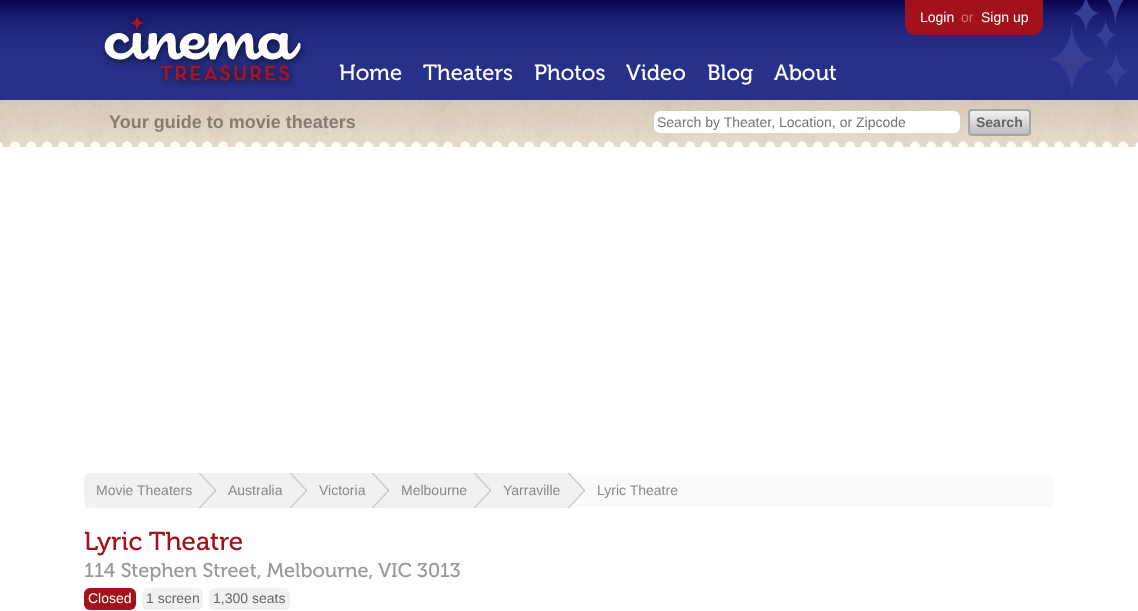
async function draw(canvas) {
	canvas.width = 1138;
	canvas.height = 611;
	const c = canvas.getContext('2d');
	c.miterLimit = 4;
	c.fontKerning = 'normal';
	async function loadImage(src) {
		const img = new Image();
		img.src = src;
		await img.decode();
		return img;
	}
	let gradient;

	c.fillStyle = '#fff';
	c.fillRect(0, 0, 1138, 611);
	c.drawImage(await loadImage('img1.png'), 0, 0, 1138, 100);
	c.drawImage(await loadImage('img2.png'), 101, 15, 206, 73);
	c.font = '22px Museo';
	for (const [text, x, y] of [
		['Home', 339, 80],
		['Theaters', 423, 80],
		['Photos', 534, 80],
		['Video', 626, 80],
		['Blog', 707, 80],
		['About', 774, 80],
	]) {
		c.fillText(text, x, y);
	}
	c.fillStyle = '#a3121b';
	c.beginPath();
	c.roundRect(905, 0, 138, 35, [0, 0, 10, 10]);
	c.fill();
	c.font = '14px Liberation Sans';
	c.fillStyle = '#fff';
	c.fillText('Login', 920, 22);
	c.fillStyle = '#c87176';
	c.fillText('or', 961, 22);
	c.fillStyle = '#fff';
	c.fillText('Sign up', 981, 22);
	c.drawImage(await loadImage('img3.png'), 1048, 0, 81, 93);
	c.drawImage(await loadImage('img4.png'), 0, 100, 1138, 48);
	c.font = 'bold 18px Liberation Sans';
	c.fillStyle = '#857d74';
	c.fillText('Your guide to movie theaters', 109, 128);
	c.fillStyle = '#fff';
	c.beginPath();
	c.roundRect(654, 111, 306, 22, 6);
	c.fill();
	c.font = '14px Liberation Sans';
	c.fillStyle = '#757575';
	c.fillText('Search by Theater, Location, or Zipcode', 657, 127);
	gradient = c.createLinearGradient(1000, 111, 1000, 134);
	gradient.addColorStop(0, '#f2f2f2');
	gradient.addColorStop(1, '#bdbdbd');
	c.fillStyle = gradient;
	c.beginPath();
	c.roundRect(970, 111, 59, 23, 2);
	c.fill();
	c.beginPath();
	c.roundRect(969, 110, 61, 25, 3);
	c.strokeStyle = '#a6a6a6';
	c.lineWidth = 2;
	c.stroke();
	c.font = 'bold 14px Liberation Sans';
	c.fillStyle = '#666';
	c.fillText('Search', 976, 127);
	c.fillStyle = '#fafafa';
	c.beginPath();
	c.roundRect(84, 473, 970, 35, 6);
	c.fill();
	c.fillStyle = '#f1f1f1';
	c.beginPath();
	c.roundRect(84, 473, 132, 35, [6, 0, 0, 6]);
	c.fill();
	c.drawImage(await loadImage('img5.png'), 198, 473, 18, 35);
	c.font = '14px Liberation Sans';
	c.fillStyle = '#888';
	c.fillText('Movie Theaters', 96, 495);
	c.fillStyle = '#f1f1f1';
	c.fillRect(216, 473, 369, 35);
	c.drawImage(await loadImage('img5.png'), 289, 473, 18, 35);
	c.fillStyle = '#888';
	c.fillText('Australia', 228, 495);
	c.drawImage(await loadImage('img5.png'), 371, 473, 18, 35);
	c.fillText('Victoria', 319, 495);
	c.drawImage(await loadImage('img5.png'), 473, 473, 18, 35);
	c.fillText('Melbourne', 401, 495);
	c.drawImage(await loadImage('img6.png'), 567, 473, 18, 35);
	c.fillText('Yarraville', 503, 495);
	c.fillText('Lyric Theatre', 597, 495);
	c.font = '26px Museo';
	c.fillStyle = '#a3121b';
	c.fillText('Lyric Theatre', 84, 550);
	c.font = '20px Museo';
	c.fillStyle = '#999';
	c.fillText('114 Stephen Street, Melbourne,', 84, 577);
	c.fillText('VIC 3013', 378, 577);
	c.fillStyle = '#a3121b';
	c.beginPath();
	c.roundRect(84, 588, 52, 22, 6);
	c.fill();
	c.font = '14px Liberation Sans';
	c.fillStyle = '#fff';
	c.fillText('Closed', 88, 603);
	c.fillStyle = '#f1f1f1';
	c.beginPath();
	c.roundRect(142, 588, 61, 22, 6);
	c.fill();
	c.fillStyle = '#666';
	c.fillText('1 screen', 146, 603);
	c.fillStyle = '#f1f1f1';
	c.beginPath();
	c.roundRect(209, 588, 81, 22, 6);
	c.fill();
	c.fillStyle = '#666';
	c.fillText('1,300 seats', 213, 603);
}

draw(document.querySelector('canvas'));
